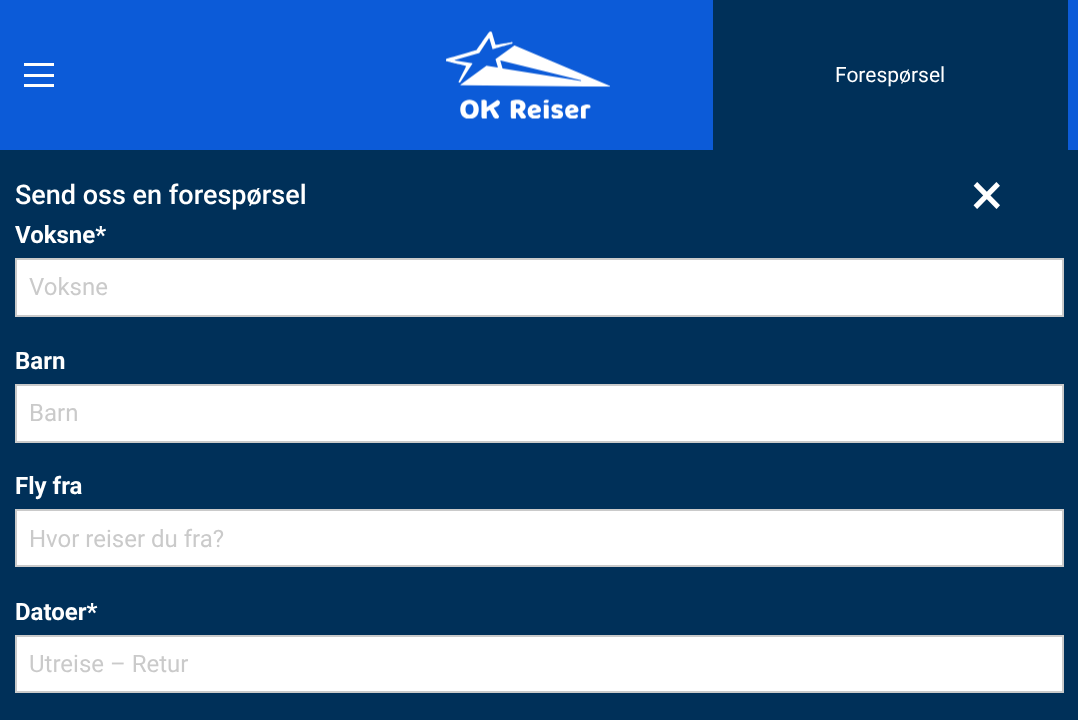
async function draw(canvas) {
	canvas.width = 1078;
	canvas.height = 720;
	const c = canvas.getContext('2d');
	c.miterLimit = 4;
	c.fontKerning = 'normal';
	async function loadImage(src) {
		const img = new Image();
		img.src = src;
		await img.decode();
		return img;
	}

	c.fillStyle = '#0c5bd8';
	c.fillRect(0, 0, 1078, 720);
	for (const [x, y, w, h, color] of [
		[24, 84, 30, 3, '#fefefe'],
		[24, 74, 30, 3, '#fefefe'],
		[24, 63, 30, 3, '#fefefe'],
	]) {
		c.fillStyle = color;
		c.fillRect(x, y, w, h);
	}
	c.drawImage(await loadImage('img1.png'), 446, 31, 164, 88);
	c.fillStyle = '#003059';
	c.fillRect(713, 0, 355, 150);
	c.font = '21px Roboto';
	c.fillStyle = '#fff';
	c.fillText('Forespørsel', 835, 82);
	c.fillStyle = '#003059';
	c.fillRect(0, 150, 1078, 570);
	c.font = '500 27px Roboto';
	c.fillStyle = '#fff';
	c.fillText('Send oss en forespørsel', 15, 204);
	c.font = '60px Roboto';
	c.fillText('×', 971, 215);
	c.font = 'bold 24px Roboto';
	c.fillText('Voksne*', 15, 243);
	c.beginPath();
	c.rect(16, 259, 1047, 57);
	c.fill();
	c.strokeStyle = '#cacaca';
	c.lineWidth = 2;
	c.stroke();
	c.font = '24px Roboto';
	c.fillStyle = '#cacaca';
	c.fillText('Voksne', 29, 295);
	c.font = 'bold 24px Roboto';
	c.fillStyle = '#fff';
	c.fillText('Barn', 15, 369);
	c.beginPath();
	c.rect(16, 385, 1047, 57);
	c.fill();
	c.stroke();
	c.font = '24px Roboto';
	c.fillStyle = '#cacaca';
	c.fillText('Barn', 29, 421);
	c.font = 'bold 24px Roboto';
	c.fillStyle = '#fff';
	c.fillText('Fly fra', 15, 494);
	c.beginPath();
	c.rect(16, 510, 1047, 56);
	c.fill();
	c.stroke();
	c.font = '24px Roboto';
	c.fillStyle = '#cacaca';
	c.fillText('Hvor reiser du fra?', 29, 547);
	c.font = 'bold 24px Roboto';
	c.fillStyle = '#fff';
	c.fillText('Datoer*', 15, 620);
	c.beginPath();
	c.rect(16, 636, 1047, 56);
	c.fill();
	c.stroke();
	c.font = '24px Roboto';
	c.fillStyle = '#cacaca';
	c.fillText('Utreise – Retur', 29, 672);
}

draw(document.querySelector('canvas'));
